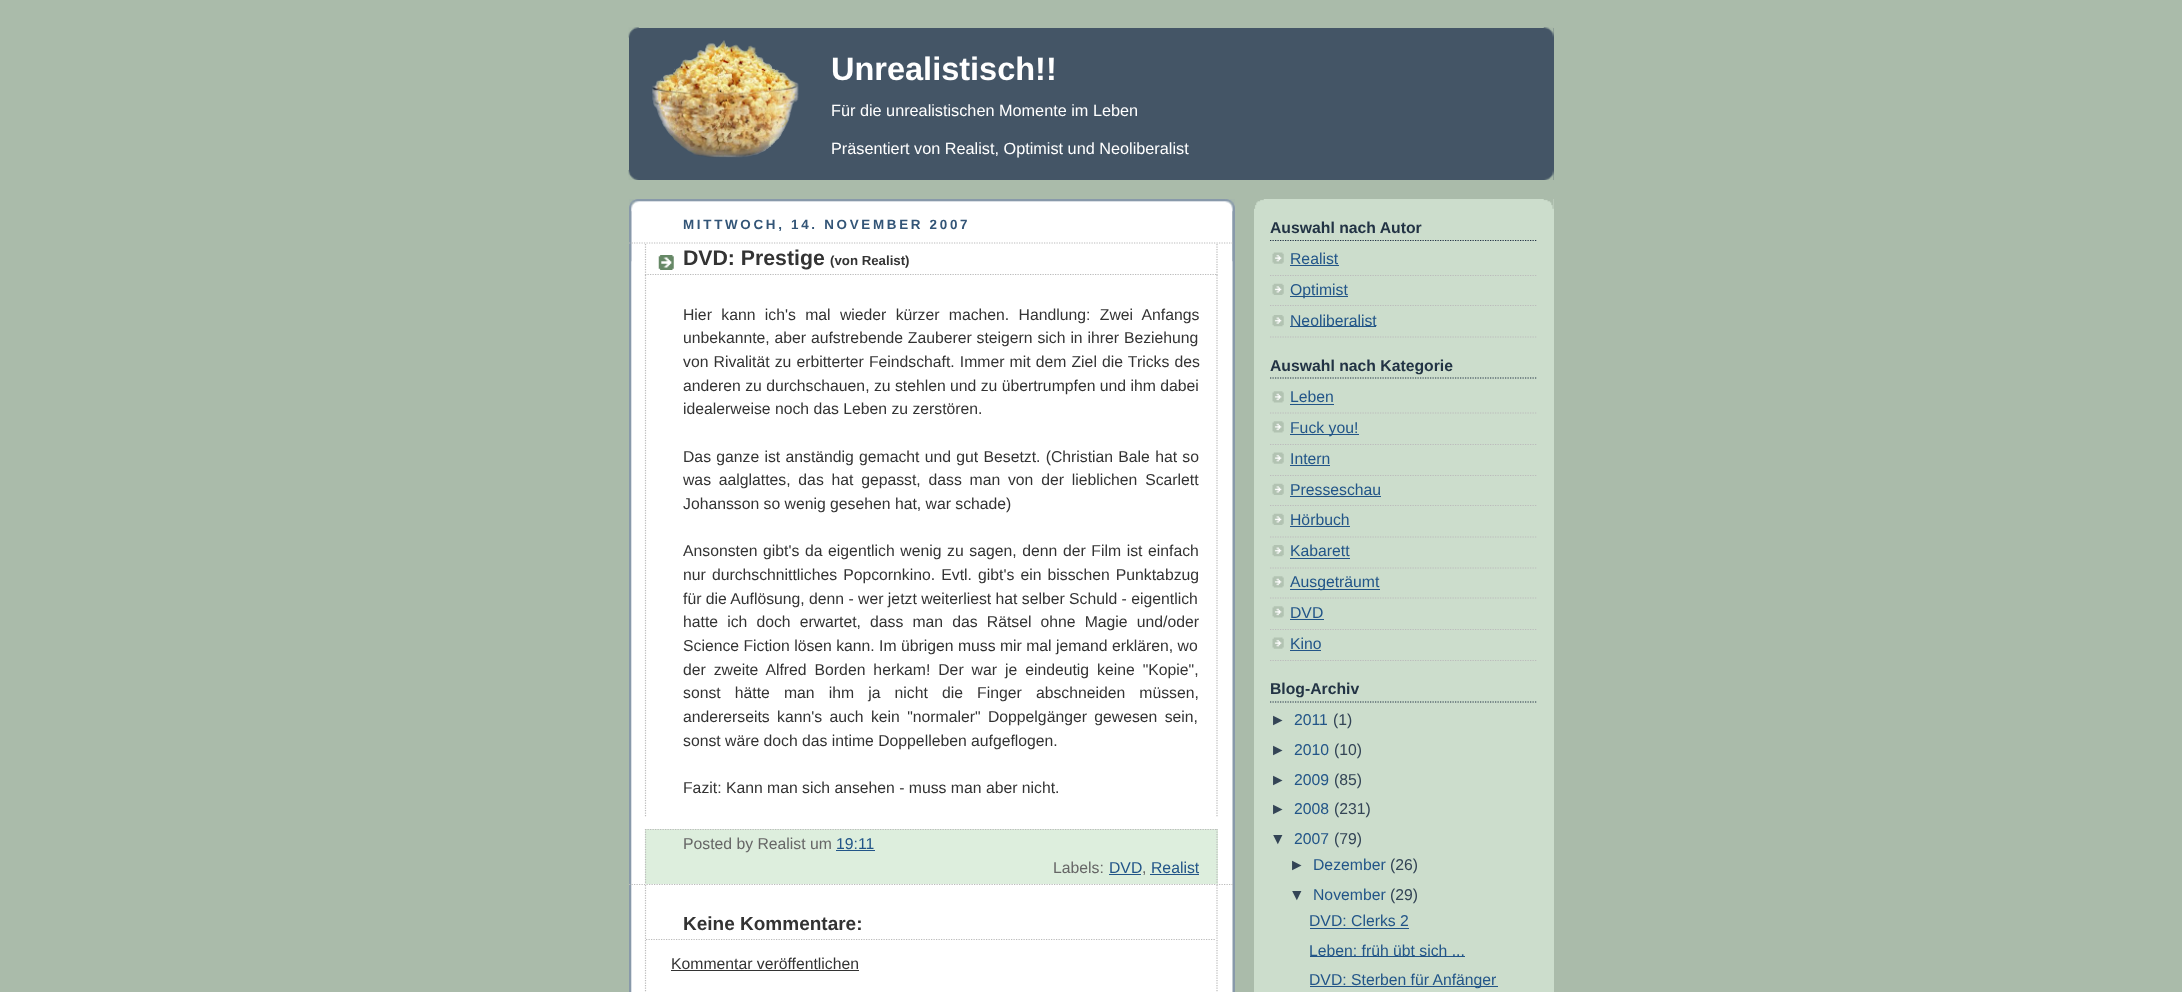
async function draw(canvas) {
	canvas.width = 2182;
	canvas.height = 992;
	const c = canvas.getContext('2d');
	c.miterLimit = 4;
	c.fontKerning = 'normal';
	async function loadImage(src) {
		const img = new Image();
		img.src = src;
		await img.decode();
		return img;
	}

	c.fillStyle = '#aba';
	c.fillRect(0, 0, 2182, 992);
	c.fillStyle = '#456';
	c.fillRect(629, 28, 925, 152);
	c.drawImage(await loadImage('img1.png'), 628, 27, 926, 11);
	c.drawImage(await loadImage('img2.png'), 628, 170, 926, 10);
	c.drawImage(await loadImage('img3.png'), 652, 40, 147, 118);
	c.font = 'bold 32.5px Liberation Sans';
	c.fillStyle = '#fff';
	c.fillText('Unrealistisch!!', 831, 80);
	c.font = '16.25px Liberation Sans';
	c.fillText('Für die unrealistischen Momente im Leben', 831, 116);
	c.fillText('Präsentiert von Realist, Optimist und Neoliberalist', 831, 154);
	c.fillRect(631, 201, 602, 791);
	c.drawImage(await loadImage('img4.png'), 629, 199, 606, 63);
	c.drawImage(await loadImage('img5.png'), 629, 211, 606, 781);
	c.letterSpacing = '2.7px';
	c.font = 'bold 13.4px Liberation Sans';
	c.fillStyle = '#357';
	c.fillText('MITTWOCH, 14. NOVEMBER 2007', 683, 229);
	c.beginPath();
	c.moveTo(629, 243);
	c.lineTo(1234, 243);
	c.strokeStyle = '#bbb';
	c.lineWidth = 1.2;
	c.setLineDash([1.25, 1.25]);
	c.stroke();
	c.beginPath();
	c.moveTo(629, 884.5);
	c.lineTo(1234, 884.5);
	c.stroke();
	c.drawImage(await loadImage('img6.png'), 658, 255, 16, 15);
	c.beginPath();
	c.moveTo(1217, 244);
	c.lineTo(1217, 275);
	c.stroke();
	c.beginPath();
	c.moveTo(645, 274.5);
	c.lineTo(1217.5, 274.5);
	c.stroke();
	c.beginPath();
	c.moveTo(645.5, 244);
	c.lineTo(645.5, 275);
	c.stroke();
	c.letterSpacing = '0px';
	c.font = 'bold 21.25px Liberation Sans';
	c.fillStyle = '#333';
	c.fillText('DVD: Prestige', 683, 265);
	c.font = 'bold 13.25px Liberation Sans';
	c.fillText('(von Realist)', 830, 265);
	c.beginPath();
	c.moveTo(1217, 275);
	c.lineTo(1217, 817.5);
	c.stroke();
	c.beginPath();
	c.moveTo(645.5, 275);
	c.lineTo(645.5, 817.5);
	c.stroke();
	c.wordSpacing = '5px';
	c.font = '15.75px Liberation Sans';
	c.fillText('Hier kann ich\'s mal wieder kürzer machen. Handlung: Zwei Anfangs', 683, 320);
	c.wordSpacing = '0.5px';
	c.fillText('unbekannte, aber aufstrebende Zauberer steigern sich in ihrer Beziehung', 683, 343);
	c.wordSpacing = '0.75px';
	c.fillText('von Rivalität zu erbitterter Feindschaft. Immer mit dem Ziel die Tricks des', 683, 367);
	c.wordSpacing = '0px';
	c.fillText('anderen zu durchschauen, zu stehlen und zu übertrumpfen und ihm dabei', 683, 391);
	c.fillText('idealerweise noch das Leben zu zerstören.', 683, 414);
	c.wordSpacing = '0.9px';
	c.fillText('Das ganze ist anständig gemacht und gut Besetzt. (Christian Bale hat so', 683, 462);
	c.wordSpacing = '3.4px';
	c.fillText('was aalglattes, das hat gepasst, dass man von der lieblichen Scarlett', 683, 485);
	c.wordSpacing = '0px';
	c.fillText('Johansson so wenig gesehen hat, war schade)', 683, 509);
	c.wordSpacing = '1.25px';
	c.fillText('Ansonsten gibt\'s da eigentlich wenig zu sagen, denn der Film ist einfach', 683, 556);
	c.wordSpacing = '1.75px';
	c.fillText('nur durchschnittliches Popcornkino. Evtl. gibt\'s ein bisschen Punktabzug', 683, 580);
	c.wordSpacing = '0px';
	c.fillText('für die Auflösung, denn - wer jetzt weiterliest hat selber Schuld - eigentlich', 683, 604);
	c.wordSpacing = '4.75px';
	c.fillText('hatte ich doch erwartet, dass man das Rätsel ohne Magie und/oder', 683, 627);
	c.wordSpacing = '0px';
	c.fillText('Science Fiction lösen kann. Im übrigen muss mir mal jemand erklären, wo', 683, 651);
	c.wordSpacing = '3.6px';
	c.fillText('der zweite Alfred Borden herkam! Der war je eindeutig keine "Kopie",', 683, 675);
	c.wordSpacing = '9.75px';
	c.fillText('sonst hätte man ihm ja nicht die Finger abschneiden müssen,', 683, 698);
	c.wordSpacing = '3px';
	c.fillText('andererseits kann\'s auch kein "normaler" Doppelgänger gewesen sein,', 683, 722);
	c.wordSpacing = '0px';
	c.fillText('sonst wäre doch das intime Doppelleben aufgeflogen.', 683, 746);
	c.fillText('Fazit: Kann man sich ansehen - muss man aber nicht.', 683, 793);
	c.fillStyle = '#ded';
	c.fillRect(645, 829, 573, 55);
	c.beginPath();
	c.moveTo(645, 829.5);
	c.lineTo(1217.5, 829.5);
	c.stroke();
	c.beginPath();
	c.moveTo(1217, 829);
	c.lineTo(1217, 884);
	c.stroke();
	c.beginPath();
	c.moveTo(645.5, 829);
	c.lineTo(645.5, 884);
	c.stroke();
	c.fillStyle = '#666';
	c.fillText('Posted by Realist', 683, 849);
	c.fillText('um', 810, 849);
	c.beginPath();
	c.moveTo(836.5, 850.5);
	c.lineTo(874.5, 850.5);
	c.strokeStyle = '#258';
	c.stroke();
	c.fillStyle = '#258';
	c.fillText('19:11', 836, 849);
	c.fillRect(836, 850, 39, 1);
	c.fillStyle = '#666';
	c.fillText('Labels:', 1053, 873);
	c.fillStyle = '#258';
	c.fillText('DVD', 1109, 873);
	c.fillStyle = '#666';
	c.fillText(',', 1142, 873);
	c.fillStyle = '#258';
	c.fillRect(1109, 874, 32, 1);
	c.fillRect(1150, 874, 49, 1);
	c.fillText('Realist', 1151, 873);
	c.beginPath();
	c.moveTo(1217, 885);
	c.lineTo(1217, 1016);
	c.strokeStyle = '#bbb';
	c.stroke();
	c.beginPath();
	c.moveTo(645.5, 885);
	c.lineTo(645.5, 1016);
	c.stroke();
	c.beginPath();
	c.moveTo(646, 939.5);
	c.lineTo(1216, 939.5);
	c.stroke();
	c.font = 'bold 19px Liberation Sans';
	c.fillStyle = '#333';
	c.fillText('Keine Kommentare:', 683, 930);
	c.font = '15.75px Liberation Sans';
	c.fillText('Kommentar veröffentlichen', 671, 969);
	c.fillRect(671, 970, 188, 1);
	c.fillStyle = '#cdc';
	c.fillRect(1254, 199, 300, 793);
	c.drawImage(await loadImage('img7.png'), 1254, 199, 300, 10);
	c.beginPath();
	c.moveTo(1270, 240.5);
	c.lineTo(1537.5, 240.5);
	c.strokeStyle = '#234';
	c.stroke();
	c.font = 'bold 15.75px Liberation Sans';
	c.fillStyle = '#234';
	c.fillText('Auswahl nach Autor', 1270, 233);
	c.drawImage(await loadImage('img8.png'), 1272, 252, 12, 12);
	c.beginPath();
	c.moveTo(1270, 275.5);
	c.lineTo(1537.5, 275.5);
	c.strokeStyle = '#bbb';
	c.stroke();
	c.font = '15.75px Liberation Sans';
	c.fillStyle = '#258';
	c.fillText('Realist', 1290, 264);
	c.fillRect(1290, 265, 49, 1);
	c.drawImage(await loadImage('img9.png'), 1272, 283, 12, 12);
	c.beginPath();
	c.moveTo(1270, 305.5);
	c.lineTo(1537.5, 305.5);
	c.stroke();
	c.fillRect(1290, 296, 58, 1);
	c.fillText('Optimist', 1290, 295);
	c.drawImage(await loadImage('img10.png'), 1272, 315, 12, 12);
	c.beginPath();
	c.moveTo(1270, 337);
	c.lineTo(1537.5, 337);
	c.stroke();
	c.fillRect(1290, 326, 86, 1);
	c.fillText('Neoliberalist', 1290, 326);
	c.beginPath();
	c.moveTo(1270, 378);
	c.lineTo(1537.5, 378);
	c.strokeStyle = '#234';
	c.stroke();
	c.font = 'bold 15.75px Liberation Sans';
	c.fillStyle = '#234';
	c.fillText('Auswahl nach Kategorie', 1270, 371);
	c.drawImage(await loadImage('img11.png'), 1272, 391, 12, 12);
	c.beginPath();
	c.moveTo(1270, 413);
	c.lineTo(1537.5, 413);
	c.strokeStyle = '#bbb';
	c.stroke();
	c.font = '15.75px Liberation Sans';
	c.fillStyle = '#258';
	c.fillText('Leben', 1290, 402);
	c.fillRect(1290, 404, 44, 1);
	c.drawImage(await loadImage('img11.png'), 1272, 421, 12, 12);
	c.beginPath();
	c.moveTo(1270, 444.5);
	c.lineTo(1537.5, 444.5);
	c.stroke();
	c.fillRect(1290, 434, 69, 1);
	c.fillText('Fuck you!', 1290, 433);
	c.drawImage(await loadImage('img8.png'), 1272, 452, 12, 12);
	c.beginPath();
	c.moveTo(1270, 475.5);
	c.lineTo(1537.5, 475.5);
	c.stroke();
	c.fillText('Intern', 1290, 464);
	c.fillRect(1290, 465, 40, 1);
	c.drawImage(await loadImage('img9.png'), 1272, 483, 12, 12);
	c.beginPath();
	c.moveTo(1270, 505.5);
	c.lineTo(1537.5, 505.5);
	c.stroke();
	c.fillText('Presseschau', 1290, 495);
	c.fillRect(1290, 496, 91, 1);
	c.drawImage(await loadImage('img9.png'), 1272, 513, 12, 12);
	c.beginPath();
	c.moveTo(1270, 537);
	c.lineTo(1537.5, 537);
	c.stroke();
	c.fillText('Hörbuch', 1290, 525);
	c.fillRect(1290, 526, 60, 1);
	c.drawImage(await loadImage('img10.png'), 1272, 545, 12, 12);
	c.beginPath();
	c.moveTo(1270, 568);
	c.lineTo(1537.5, 568);
	c.stroke();
	c.fillText('Kabarett', 1290, 556);
	c.fillRect(1290, 558, 60, 1);
	c.drawImage(await loadImage('img11.png'), 1272, 576, 12, 12);
	c.beginPath();
	c.moveTo(1270, 598);
	c.lineTo(1537.5, 598);
	c.stroke();
	c.fillRect(1290, 589, 90, 1);
	c.fillText('Ausgeträumt', 1290, 587);
	c.drawImage(await loadImage('img11.png'), 1272, 606, 12, 12);
	c.beginPath();
	c.moveTo(1270, 629.5);
	c.lineTo(1537.5, 629.5);
	c.stroke();
	c.fillText('DVD', 1290, 618);
	c.fillRect(1290, 619, 34, 1);
	c.drawImage(await loadImage('img8.png'), 1272, 637, 12, 12);
	c.beginPath();
	c.moveTo(1270, 660.5);
	c.lineTo(1537.5, 660.5);
	c.stroke();
	c.fillText('Kino', 1290, 649);
	c.fillRect(1290, 650, 31, 1);
	c.beginPath();
	c.moveTo(1270, 702);
	c.lineTo(1537.5, 702);
	c.strokeStyle = '#234';
	c.stroke();
	c.font = 'bold 15.75px Liberation Sans';
	c.fillStyle = '#234';
	c.fillText('Blog-Archiv', 1270, 694);
	c.font = '15.75px Liberation Sans';
	c.fillStyle = '#345';
	c.fillText('►', 1270, 725);
	c.fillStyle = '#258';
	c.fillText('2011', 1294, 725);
	c.fillStyle = '#345';
	c.fillText('(1)', 1333, 725);
	c.fillText('►', 1270, 755);
	c.fillStyle = '#258';
	c.fillText('2010', 1294, 755);
	c.fillStyle = '#345';
	c.fillText('(10)', 1334, 755);
	c.fillText('►', 1270, 785);
	c.fillStyle = '#258';
	c.fillText('2009', 1294, 785);
	c.fillStyle = '#345';
	c.fillText('(85)', 1334, 785);
	c.fillText('►', 1270, 814);
	c.fillStyle = '#258';
	c.fillText('2008', 1294, 814);
	c.fillStyle = '#345';
	c.fillText('(231)', 1334, 814);
	c.fillText('▼', 1270, 844);
	c.fillStyle = '#258';
	c.fillText('2007', 1294, 844);
	c.fillStyle = '#345';
	c.fillText('(79)', 1334, 844);
	c.fillText('►', 1289, 870);
	c.fillStyle = '#258';
	c.fillText('Dezember', 1313, 870);
	c.fillStyle = '#345';
	c.fillText('(26)', 1390, 870);
	c.fillText('▼', 1289, 900);
	c.fillStyle = '#258';
	c.fillText('November', 1313, 900);
	c.fillStyle = '#345';
	c.fillText('(29)', 1390, 900);
	c.fillStyle = '#258';
	c.fillText('DVD: Clerks 2', 1309, 926);
	c.fillRect(1310, 928, 99, 1);
	c.fillRect(1310, 956, 155, 1);
	c.fillText('Leben: früh übt sich ...', 1309, 956);
	c.fillRect(1310, 986, 188, 1);
	c.fillText('DVD: Sterben für Anfänger', 1309, 985);
}

draw(document.querySelector('canvas'));
